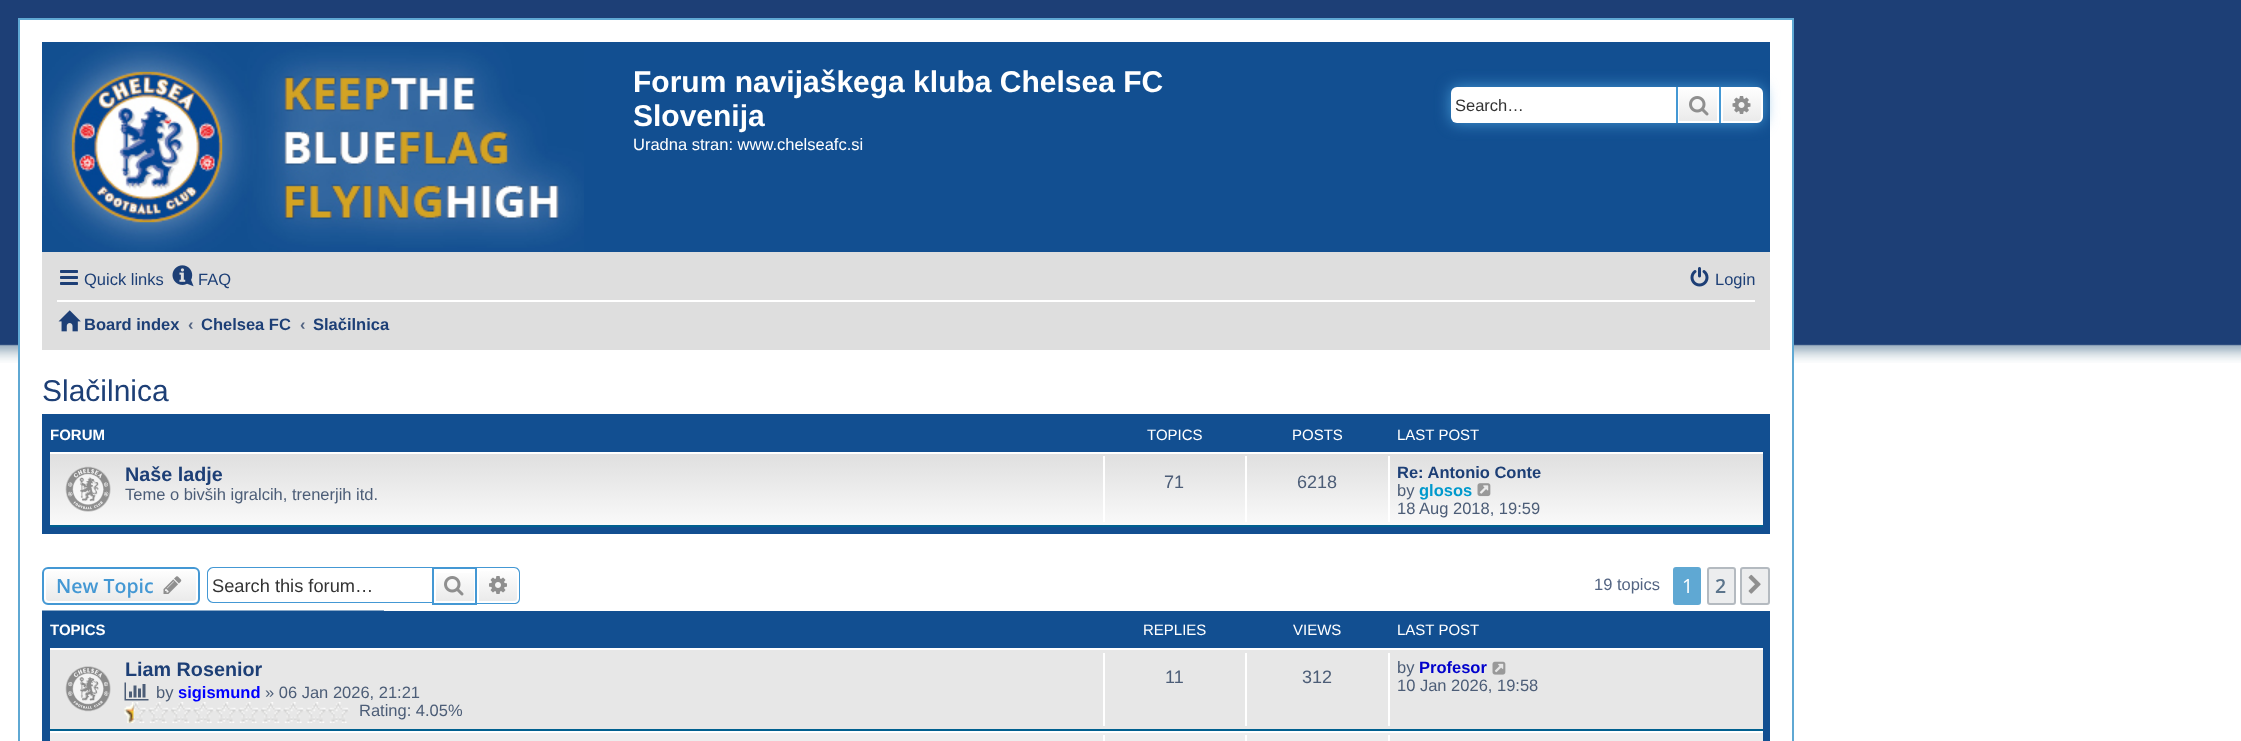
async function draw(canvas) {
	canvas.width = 2241;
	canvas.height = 741;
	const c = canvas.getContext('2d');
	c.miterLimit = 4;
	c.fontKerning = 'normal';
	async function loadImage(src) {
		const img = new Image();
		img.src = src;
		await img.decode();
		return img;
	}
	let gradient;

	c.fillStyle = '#fff';
	c.fillRect(0, 0, 2241, 741);
	c.drawImage(await loadImage('img1.png'), 0, 0, 2241, 363);
	c.fillRect(20, 20, 1772, 343);
	c.strokeStyle = '#5fa8d3';
	c.lineWidth = 2;
	c.strokeRect(19, 19, 1774, 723);
	c.fillStyle = '#124f91';
	c.fillRect(584, 42, 1186, 210);
	c.drawImage(await loadImage('img2.png'), 42, 42, 542, 210);
	c.font = 'bold 30px Liberation Sans';
	c.fillStyle = '#fff';
	c.fillText('Forum navijaškega kluba Chelsea FC', 633, 92);
	c.fillText('Slovenija', 633, 126);
	c.font = '16.5px Liberation Sans';
	c.fillText('Uradna stran: www.chelseafc.si', 633, 150);
	c.fillStyle = '#4498d4';
	c.filter = 'blur(7.5px)';
	c.beginPath();
	c.roundRect(1451, 87, 312, 36, 6);
	c.fill();
	c.filter = 'none';
	c.fillStyle = '#fff';
	c.beginPath();
	c.roundRect(1451, 87, 225, 36, [6, 0, 0, 6]);
	c.fill();
	c.fillStyle = '#333';
	c.fillText('Search…', 1455, 111);
	gradient = c.createLinearGradient(1698, 87, 1698, 123);
	gradient.addColorStop(0, '#fff');
	gradient.addColorStop(1, '#e9e9e9');
	c.fillStyle = gradient;
	c.fillRect(1679, 89, 38, 32);
	c.strokeStyle = '#fff';
	c.strokeRect(1678, 88, 40, 34);
	c.fillStyle = '#4498d4';
	c.fillRect(1719, 87, 2, 36);
	c.fillRect(1676, 87, 2, 36);
	c.drawImage(await loadImage('img3.png'), 1689, 96, 20, 20);
	gradient = c.createLinearGradient(1742, 87, 1742, 123);
	gradient.addColorStop(0, '#fff');
	gradient.addColorStop(1, '#e9e9e9');
	c.fillStyle = gradient;
	c.beginPath();
	c.roundRect(1722, 88, 40, 34, [0, 5, 5, 0]);
	c.fill();
	c.stroke();
	c.drawImage(await loadImage('img4.png'), 1732, 96, 19, 18);
	c.fillStyle = '#dedede';
	c.fillRect(42, 252, 1728, 98);
	c.drawImage(await loadImage('img5.png'), 60, 270, 18, 15);
	c.fillStyle = '#1d3f76';
	c.fillText('Quick links', 84, 285);
	c.drawImage(await loadImage('img6.png'), 172, 265, 22, 22);
	c.fillText('FAQ', 198, 285);
	c.drawImage(await loadImage('img7.png'), 1690, 267, 19, 20);
	c.fillText('Login', 1715, 285);
	c.fillStyle = '#fff';
	c.fillRect(57, 300, 1698, 2);
	c.drawImage(await loadImage('img8.png'), 58, 310, 23, 22);
	c.font = 'bold 16.5px Liberation Sans';
	c.fillStyle = '#1d3f76';
	c.fillText('Board index', 84, 330);
	c.fillStyle = '#536482';
	c.fillText('‹', 188, 330);
	c.fillStyle = '#1d3f76';
	c.fillText('Chelsea FC', 201, 330);
	c.fillStyle = '#536482';
	c.fillText('‹', 300, 330);
	c.fillStyle = '#1d3f76';
	c.fillText('Slačilnica', 313, 330);
	c.font = '30px Liberation Sans';
	c.fillText('Slačilnica', 42, 401);
	c.fillStyle = '#124f91';
	c.fillRect(42, 414, 1728, 120);
	c.font = 'bold 15px Liberation Sans';
	c.fillStyle = '#fff';
	c.fillText('FORUM', 50, 440);
	c.font = '15px Liberation Sans';
	for (const [text, x, y] of [
		['TOPICS', 1147, 440],
		['POSTS', 1292, 440],
		['LAST POST', 1397, 440],
	]) {
		c.fillText(text, x, y);
	}
	gradient = c.createLinearGradient(906, 451, 906, 527);
	gradient.addColorStop(0, '#dedede');
	gradient.addColorStop(1, '#fafafa');
	c.fillStyle = gradient;
	c.fillRect(50, 454, 1713, 71);
	c.fillStyle = '#fff';
	c.fillRect(50, 452, 1713, 2);
	c.fillStyle = '#00608f';
	c.fillRect(50, 525, 1713, 2);
	c.drawImage(await loadImage('img9.png'), 65, 466, 46, 46);
	c.font = 'bold 19.75px Liberation Sans';
	c.fillStyle = '#1d3f76';
	c.fillText('Naše ladje', 125, 481);
	c.font = '16.5px Liberation Sans';
	c.fillStyle = '#4c5d77';
	c.fillText('Teme o bivših igralcih, trenerjih itd.', 125, 500);
	c.fillStyle = '#fff';
	c.fillRect(1103, 456, 2, 66);
	c.font = '18px Liberation Sans';
	c.fillStyle = '#4c5d77';
	c.fillText('71', 1164, 488);
	c.fillStyle = '#fff';
	c.fillRect(1245, 456, 2, 66);
	c.fillStyle = '#4c5d77';
	c.fillText('6218', 1297, 488);
	c.fillStyle = '#fff';
	c.fillRect(1388, 456, 2, 66);
	c.font = 'bold 16.5px Liberation Sans';
	c.fillStyle = '#1d3f76';
	c.fillText('Re: Antonio Conte', 1397, 478);
	c.font = '16.5px Liberation Sans';
	c.fillStyle = '#4c5d77';
	c.fillText('by', 1397, 496);
	c.font = 'bold 16.5px Liberation Sans';
	c.fillStyle = '#09c';
	c.fillText('glosos', 1419, 496);
	c.drawImage(await loadImage('img10.png'), 1477, 483, 14, 14);
	c.font = '16.5px Liberation Sans';
	c.fillStyle = '#4c5d77';
	c.fillText('18 Aug 2018, 19:59', 1397, 514);
	c.save();
	c.beginPath();
	c.roundRect(42, 567, 158, 38, 6);
	c.clip();
	gradient = c.createLinearGradient(121, 569, 121, 603);
	gradient.addColorStop(0, '#fff');
	gradient.addColorStop(1, '#e9e9e9');
	c.fillStyle = gradient;
	c.fillRect(42, 569, 158, 34);
	c.restore();
	c.beginPath();
	c.roundRect(45, 570, 152, 32, 4);
	c.stroke();
	c.beginPath();
	c.roundRect(43, 568, 156, 36, 5);
	c.strokeStyle = '#4498d4';
	c.stroke();
	c.font = '600 19.5px Open Sans';
	c.fillStyle = '#4498d4';
	c.fillText('New Topic', 56, 593);
	c.drawImage(await loadImage('img11.png'), 163, 576, 19, 18);
	c.beginPath();
	c.moveTo(213, 567);
	c.lineTo(432, 567);
	c.lineTo(432, 603);
	c.lineTo(213, 603);
	c.bezierCurveTo(210, 603, 207, 600, 207, 597);
	c.lineTo(207, 573);
	c.bezierCurveTo(207, 570, 210, 567, 213, 567);
	c.closePath();
	c.moveTo(213, 568);
	c.lineTo(432, 568);
	c.lineTo(432, 602);
	c.lineTo(213, 602);
	c.bezierCurveTo(211, 602, 208, 599, 208, 597);
	c.lineTo(208, 573);
	c.bezierCurveTo(208, 571, 211, 568, 213, 568);
	c.closePath();
	c.fill('evenodd');
	c.font = '18.25px Liberation Sans';
	c.fillStyle = '#333';
	c.fillText('Search this forum…', 212, 592);
	gradient = c.createLinearGradient(455, 569, 455, 603);
	gradient.addColorStop(0, '#fff');
	gradient.addColorStop(1, '#e9e9e9');
	c.fillStyle = gradient;
	c.fillRect(436, 573, 38, 28);
	c.strokeRect(433, 568, 43, 36);
	c.drawImage(await loadImage('img12.png'), 444, 576, 20, 20);
	gradient = c.createLinearGradient(498, 569, 498, 603);
	gradient.addColorStop(0, '#fff');
	gradient.addColorStop(1, '#e9e9e9');
	c.fillStyle = gradient;
	c.beginPath();
	c.roundRect(478, 570, 40, 32, [0, 4, 4, 0]);
	c.fill();
	c.strokeStyle = '#fff';
	c.stroke();
	c.fillStyle = '#4498d4';
	c.beginPath();
	c.moveTo(477, 567);
	c.lineTo(514, 567);
	c.bezierCurveTo(518, 567, 520, 570, 520, 573);
	c.lineTo(520, 598);
	c.bezierCurveTo(520, 602, 518, 604, 514, 604);
	c.lineTo(477, 604);
	c.closePath();
	c.moveTo(477, 568);
	c.lineTo(514, 568);
	c.bezierCurveTo(517, 568, 519, 571, 519, 573);
	c.lineTo(519, 598);
	c.bezierCurveTo(519, 601, 517, 603, 514, 603);
	c.lineTo(477, 603);
	c.closePath();
	c.fill('evenodd');
	c.drawImage(await loadImage('img13.png'), 489, 576, 18, 18);
	c.font = '16.5px Liberation Sans';
	c.fillStyle = '#536482';
	c.fillText('19 topics', 1594, 590);
	c.fillStyle = '#5fa8d3';
	c.beginPath();
	c.roundRect(1674, 568, 26, 36, 2);
	c.fill();
	c.strokeStyle = '#5fa8d3';
	c.stroke();
	c.font = '19.5px Open Sans';
	c.fillStyle = '#fff';
	c.fillText('1', 1682, 593);
	c.fillStyle = '#ecedee';
	c.beginPath();
	c.roundRect(1708, 568, 27, 36, 2);
	c.fill();
	c.strokeStyle = '#b4bac0';
	c.stroke();
	c.font = '600 19.5px Open Sans';
	c.fillStyle = '#5c758c';
	c.fillText('2', 1715, 593);
	c.fillStyle = '#ecedee';
	c.beginPath();
	c.roundRect(1741, 568, 28, 36, 2);
	c.fill();
	c.stroke();
	c.drawImage(await loadImage('img14.png'), 1748, 574, 13, 20);
	c.fillStyle = '#124f91';
	c.fillRect(42, 611, 1728, 130);
	c.fillStyle = '#89a8c7';
	c.fillRect(42, 610, 342, 1);
	c.save();
	c.beginPath();
	c.rect(50, 618, 1713, 30);
	c.clip();
	c.font = 'bold 15px Liberation Sans';
	c.fillStyle = '#fff';
	c.fillText('TOPICS', 50, 635);
	c.restore();
	c.font = '15px Liberation Sans';
	c.fillStyle = '#fff';
	for (const [text, x, y] of [
		['REPLIES', 1143, 635],
		['VIEWS', 1293, 635],
		['LAST POST', 1397, 635],
	]) {
		c.fillText(text, x, y);
	}
	for (const [x, y, w, h, color] of [
		[50, 650, 1713, 79, '#e7e7e7'],
		[50, 648, 1713, 2, '#fff'],
		[50, 729, 1713, 2, '#00608f'],
	]) {
		c.fillStyle = color;
		c.fillRect(x, y, w, h);
	}
	c.drawImage(await loadImage('img15.png'), 65, 666, 46, 46);
	c.font = 'bold 19.75px Liberation Sans';
	c.fillStyle = '#1d3f76';
	c.fillText('Liam Rosenior', 125, 676);
	c.drawImage(await loadImage('img16.png'), 124, 682, 25, 19);
	c.font = '16.5px Liberation Sans';
	c.fillStyle = '#4c5d77';
	c.fillText('by', 156, 698);
	c.font = 'bold 16.5px Liberation Sans';
	c.fillStyle = '#00f';
	c.fillText('sigismund', 178, 698);
	c.font = '16.5px Liberation Sans';
	c.fillStyle = '#4c5d77';
	c.fillText('» 06 Jan 2026, 21:21', 265, 698);
	c.drawImage(await loadImage('img17.png'), 124, 702, 226, 21);
	c.drawImage(await loadImage('img18.png'), 124, 702, 10, 21);
	c.fillText('Rating: 4.05%', 359, 716);
	c.fillStyle = '#fff';
	c.fillRect(1103, 653, 2, 73);
	c.font = '18px Liberation Sans';
	c.fillStyle = '#4c5d77';
	c.fillText('11', 1165, 683);
	c.fillStyle = '#fff';
	c.fillRect(1245, 653, 2, 73);
	c.fillStyle = '#4c5d77';
	c.fillText('312', 1302, 683);
	c.fillStyle = '#fff';
	c.fillRect(1388, 653, 2, 73);
	c.font = '16.5px Liberation Sans';
	c.fillStyle = '#4c5d77';
	c.fillText('by', 1397, 673);
	c.font = 'bold 16.5px Liberation Sans';
	c.fillStyle = '#00c';
	c.fillText('Profesor', 1419, 673);
	c.drawImage(await loadImage('img19.png'), 1492, 661, 14, 14);
	c.font = '16.5px Liberation Sans';
	c.fillStyle = '#4c5d77';
	c.fillText('10 Jan 2026, 19:58', 1397, 691);
	for (const [x, y, w, h, color] of [
		[50, 733, 1713, 8, '#ededed'],
		[50, 731, 1713, 2, '#fff'],
		[1103, 735, 2, 6, '#fff'],
		[1245, 735, 2, 6, '#fff'],
		[1388, 735, 2, 6, '#fff'],
	]) {
		c.fillStyle = color;
		c.fillRect(x, y, w, h);
	}
}

draw(document.querySelector('canvas'));
